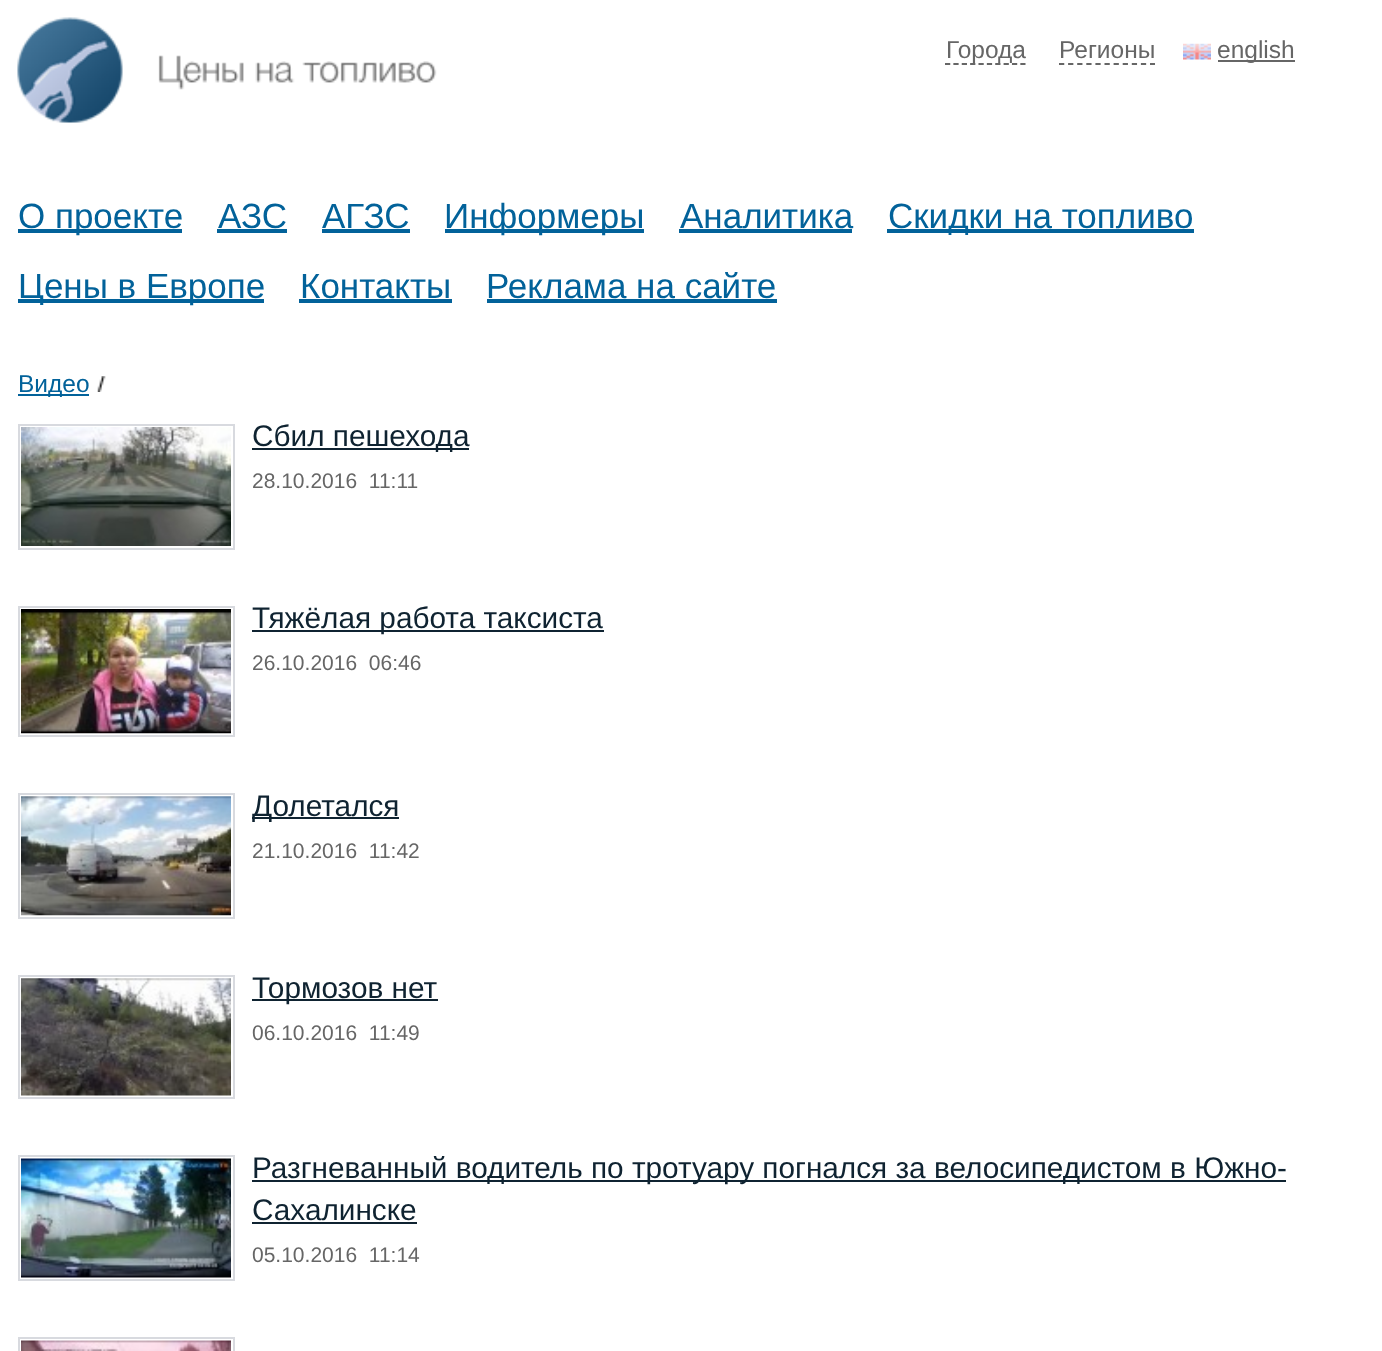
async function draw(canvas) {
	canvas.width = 1382;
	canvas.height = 1351;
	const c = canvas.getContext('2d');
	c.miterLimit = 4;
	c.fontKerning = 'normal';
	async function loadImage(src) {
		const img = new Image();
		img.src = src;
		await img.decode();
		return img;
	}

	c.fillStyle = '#fff';
	c.fillRect(0, 0, 1382, 1351);
	c.drawImage(await loadImage('img1.png'), 17, 17, 106, 106);
	c.drawImage(await loadImage('img2.png'), 158, 55, 86, 35);
	c.drawImage(await loadImage('img3.png'), 255, 61, 40, 22);
	c.drawImage(await loadImage('img4.png'), 302, 61, 135, 22);
	c.beginPath();
	c.moveTo(945, 64);
	c.lineTo(1025.5, 64);
	c.strokeStyle = '#666';
	c.lineWidth = 1.8;
	c.setLineDash([5.25, 3.12]);
	c.stroke();
	c.font = '24.5px Liberation Sans';
	c.fillStyle = '#666';
	c.fillText('Города', 946, 58);
	c.fillText('Регионы', 1059, 58);
	c.beginPath();
	c.moveTo(1059, 64);
	c.lineTo(1155, 64);
	c.setLineDash([5.25, 3.85]);
	c.stroke();
	c.drawImage(await loadImage('img5.png'), 1183, 43, 28, 17);
	c.fillRect(1218, 60, 77, 2);
	c.fillText('english', 1217, 58);
	c.fillStyle = '#02629a';
	c.fillRect(18, 229, 164, 4);
	c.font = '35px Liberation Sans';
	c.fillText('О проекте', 18, 228);
	c.fillText('АЗС', 218, 228);
	c.fillRect(217, 229, 70, 4);
	c.fillText('АГЗС', 322, 228);
	c.fillRect(322, 229, 88, 4);
	c.fillRect(445, 229, 199, 4);
	c.fillText('Информеры', 444, 228);
	c.fillText('Аналитика', 680, 228);
	c.fillRect(679, 229, 173, 4);
	c.fillRect(887, 229, 307, 4);
	c.fillText('Скидки на топливо', 888, 228);
	c.fillRect(18, 299, 246, 4);
	c.fillText('Цены в Европе', 18, 298);
	c.fillText('Контакты', 300, 298);
	c.fillRect(299, 299, 153, 4);
	c.fillText('Реклама на сайте', 486, 298);
	c.fillRect(487, 299, 290, 4);
	c.fillRect(18, 394, 71, 2);
	c.font = '24.5px Liberation Sans';
	c.fillText('Видео', 18, 392);
	c.drawImage(await loadImage('img6.png'), 97, 376, 9, 16);
	c.strokeStyle = '#d8dadf';
	c.lineWidth = 2;
	c.setLineDash([]);
	c.strokeRect(19, 425, 215, 124);
	c.drawImage(await loadImage('img7.png'), 21, 427, 210, 119);
	c.fillStyle = '#0f2331';
	c.fillRect(252, 448, 217, 2);
	c.font = '29.75px Liberation Sans';
	c.fillText('Сбил пешехода', 252, 446);
	c.font = '21px Liberation Sans';
	c.fillStyle = '#666';
	c.fillText('28.10.2016  11:11', 252, 488);
	c.strokeRect(19, 607, 215, 129);
	c.drawImage(await loadImage('img8.png'), 21, 609, 210, 125);
	c.fillStyle = '#0f2331';
	c.fillRect(252, 630, 352, 2);
	c.font = '29.75px Liberation Sans';
	c.fillText('Тяжёлая работа таксиста', 252, 628);
	c.font = '21px Liberation Sans';
	c.fillStyle = '#666';
	c.fillText('26.10.2016  06:46', 252, 670);
	c.strokeRect(19, 794, 215, 124);
	c.drawImage(await loadImage('img9.png'), 21, 796, 210, 120);
	c.fillStyle = '#0f2331';
	c.fillRect(252, 817, 147, 2);
	c.font = '29.75px Liberation Sans';
	c.fillText('Долетался', 252, 816);
	c.font = '21px Liberation Sans';
	c.fillStyle = '#666';
	c.fillText('21.10.2016  11:42', 252, 858);
	c.strokeRect(19, 976, 215, 122);
	c.drawImage(await loadImage('img10.png'), 21, 978, 210, 118);
	c.fillStyle = '#0f2331';
	c.fillRect(252, 999, 186, 2);
	c.font = '29.75px Liberation Sans';
	c.fillText('Тормозов нет', 252, 998);
	c.font = '21px Liberation Sans';
	c.fillStyle = '#666';
	c.fillText('06.10.2016  11:49', 252, 1040);
	c.strokeRect(19, 1156, 215, 124);
	c.drawImage(await loadImage('img11.png'), 21, 1158, 210, 120);
	c.fillStyle = '#0f2331';
	c.fillRect(252, 1180, 1034, 2);
	c.font = '29.75px Liberation Sans';
	c.fillText('Разгневанный водитель по тротуару погнался за велосипедистом в Южно-', 252, 1178);
	c.fillText('Сахалинске', 252, 1220);
	c.fillRect(252, 1222, 165, 2);
	c.font = '21px Liberation Sans';
	c.fillStyle = '#666';
	c.fillText('05.10.2016  11:14', 252, 1262);
	c.strokeRect(19, 1338, 215, 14);
	c.drawImage(await loadImage('img12.png'), 21, 1340, 210, 11);
}

draw(document.querySelector('canvas'));
